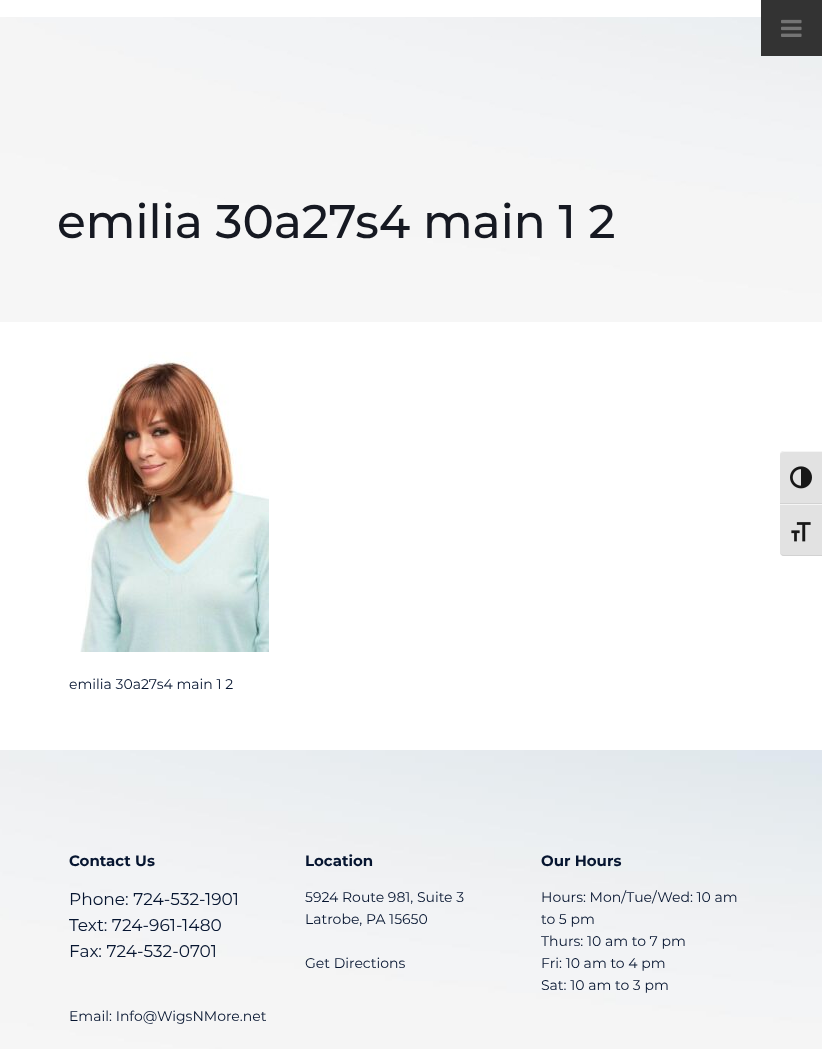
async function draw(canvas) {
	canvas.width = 822;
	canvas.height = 1049;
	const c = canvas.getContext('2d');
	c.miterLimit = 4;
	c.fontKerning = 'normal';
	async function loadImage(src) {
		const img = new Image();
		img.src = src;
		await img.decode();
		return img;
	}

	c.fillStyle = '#fff';
	c.fillRect(0, 0, 822, 1049);
	c.drawImage(await loadImage('img2.png'), 0, 17, 822, 305);
	c.fillStyle = '#333';
	c.fillRect(761, 0, 61, 56);
	c.drawImage(await loadImage('img1.png'), 781, 19, 21, 18);
	c.font = '500 47px Montserrat';
	c.fillStyle = '#161922';
	c.fillText('emilia 30a27s4 main 1 2', 57, 238);
	c.drawImage(await loadImage('img3.png'), 80, 352, 189, 300);
	c.font = '14px Montserrat';
	c.fillStyle = '#061530';
	c.fillText('emilia 30a27s4 main 1 2', 69, 689);
	c.drawImage(await loadImage('img4.png'), 0, 750, 822, 299);
	c.font = 'bold 15px Montserrat';
	c.fillText('Contact Us', 69, 866);
	c.font = '17px Montserrat';
	for (const [text, x, y] of [
		['Phone: 724-532-1901', 69, 905],
		['Text: 724-961-1480', 69, 931],
		['Fax: 724-532-0701', 69, 957],
	]) {
		c.fillText(text, x, y);
	}
	c.font = '14px Montserrat';
	c.fillText('Email: Info@WigsNMore.net', 69, 1021);
	c.font = 'bold 15px Montserrat';
	c.fillText('Location', 305, 866);
	c.font = '14px Montserrat';
	for (const [text, x, y] of [
		['5924 Route 981, Suite 3', 305, 902],
		['Latrobe, PA 15650', 305, 924],
		['Get Directions', 305, 968],
	]) {
		c.fillText(text, x, y);
	}
	c.font = 'bold 15px Montserrat';
	c.fillText('Our Hours', 541, 866);
	c.font = '14px Montserrat';
	for (const [text, x, y] of [
		['Hours: Mon/Tue/Wed: 10 am', 541, 902],
		['to 5 pm', 541, 924],
		['Thurs: 10 am to 7 pm', 541, 946],
		['Fri: 10 am to 4 pm', 541, 968],
		['Sat: 10 am to 3 pm', 541, 990],
	]) {
		c.fillText(text, x, y);
	}
	c.fillStyle = '#e2e2e2';
	c.beginPath();
	c.roundRect(780, 451, 42, 53, [4, 0, 0, 0]);
	c.fill();
	c.fillStyle = '#f5f5f5';
	c.beginPath();
	c.moveTo(784, 452);
	c.lineTo(822, 452);
	c.lineTo(822, 451);
	c.lineTo(784, 451);
	c.bezierCurveTo(782, 451, 780, 453, 780, 455);
	c.bezierCurveTo(780, 453, 782, 452, 784, 452);
	c.closePath();
	c.fill();
	c.fillStyle = '#d2d2d2';
	c.fillRect(780, 503, 42, 1);
	c.drawImage(await loadImage('img5.png'), 790, 466, 22, 23);
	c.fillStyle = '#e2e2e2';
	c.beginPath();
	c.roundRect(780, 504, 42, 52, [0, 0, 0, 4]);
	c.fill();
	c.fillStyle = '#f5f5f5';
	c.fillRect(780, 504, 42, 1);
	c.fillStyle = '#d2d2d2';
	c.beginPath();
	c.moveTo(822, 556);
	c.lineTo(822, 555);
	c.lineTo(784, 555);
	c.bezierCurveTo(782, 555, 780, 554, 780, 552);
	c.bezierCurveTo(780, 554, 782, 556, 784, 556);
	c.closePath();
	c.fill();
	c.drawImage(await loadImage('img6.png'), 791, 522, 20, 20);
}

draw(document.querySelector('canvas'));
